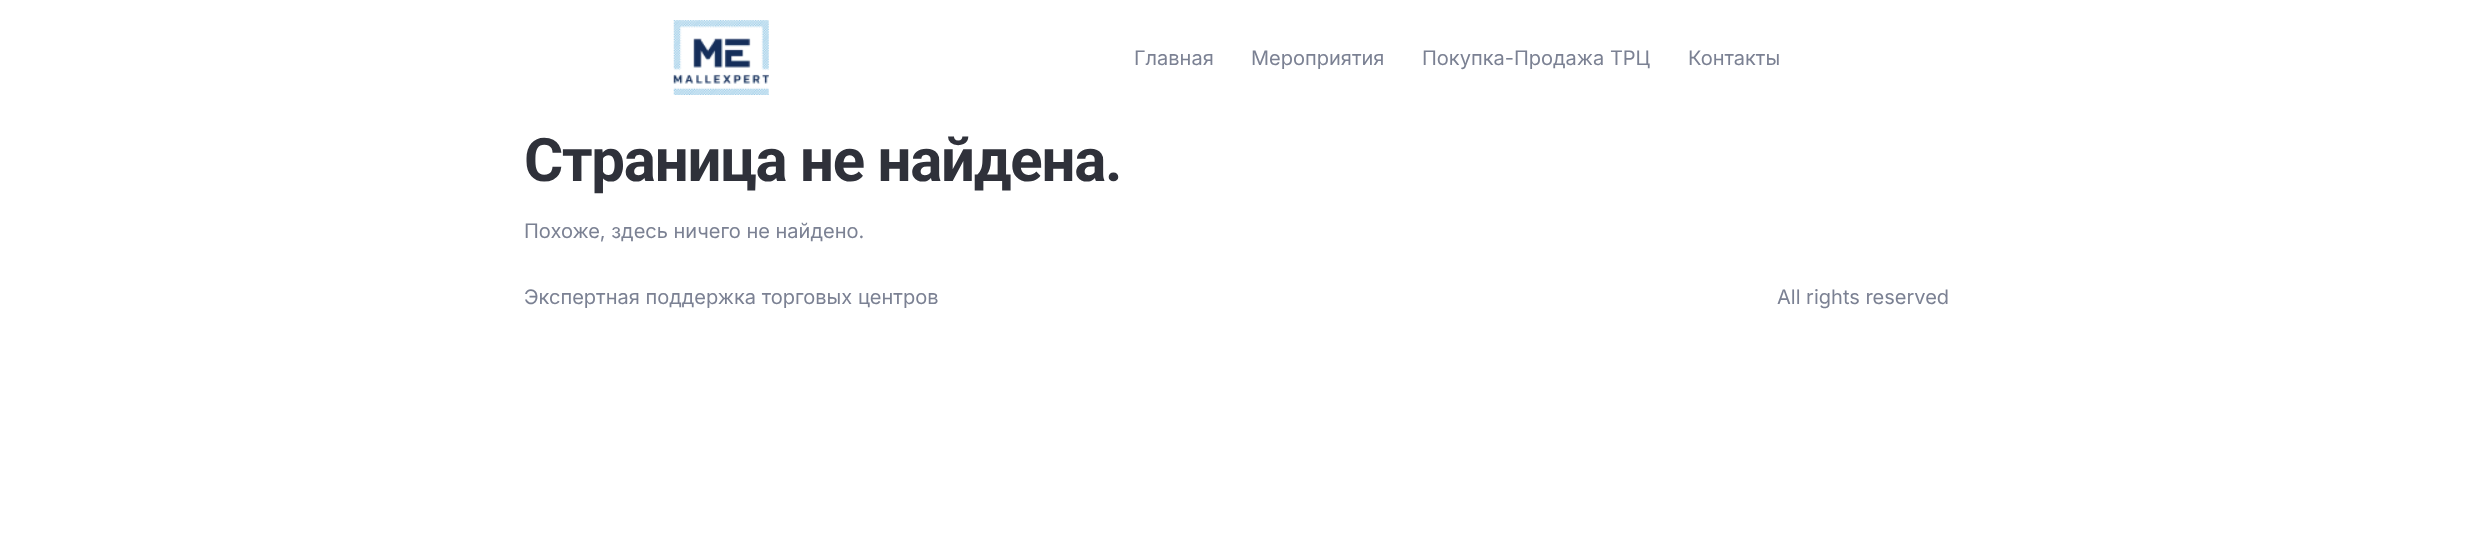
async function draw(canvas) {
	canvas.width = 2472;
	canvas.height = 538;
	const c = canvas.getContext('2d');
	c.miterLimit = 4;
	c.fontKerning = 'normal';
	async function loadImage(src) {
		const img = new Image();
		img.src = src;
		await img.decode();
		return img;
	}

	c.fillStyle = '#fff';
	c.fillRect(0, 0, 2472, 538);
	c.drawImage(await loadImage('img1.png'), 673, 20, 96, 75);
	c.font = '20px Inter';
	c.fillStyle = '#7b8193';
	for (const [text, x, y] of [
		['Главная', 1134, 65],
		['Мероприятия', 1251, 65],
		['Покупка-Продажа ТРЦ', 1422, 65],
		['Контакты', 1688, 65],
	]) {
		c.fillText(text, x, y);
	}
	c.letterSpacing = '-1.25px';
	c.font = 'bold 60px Roboto';
	c.fillStyle = '#2f313a';
	c.fillText('Страница не найдена.', 524, 181);
	c.letterSpacing = '0px';
	c.font = '20px Inter';
	c.fillStyle = '#7b8193';
	for (const [text, x, y] of [
		['Похоже, здесь ничего не найдено.', 524, 238],
		['Экспертная поддержка торговых центров', 524, 304],
		['All rights reserved', 1777, 304],
	]) {
		c.fillText(text, x, y);
	}
}

draw(document.querySelector('canvas'));
